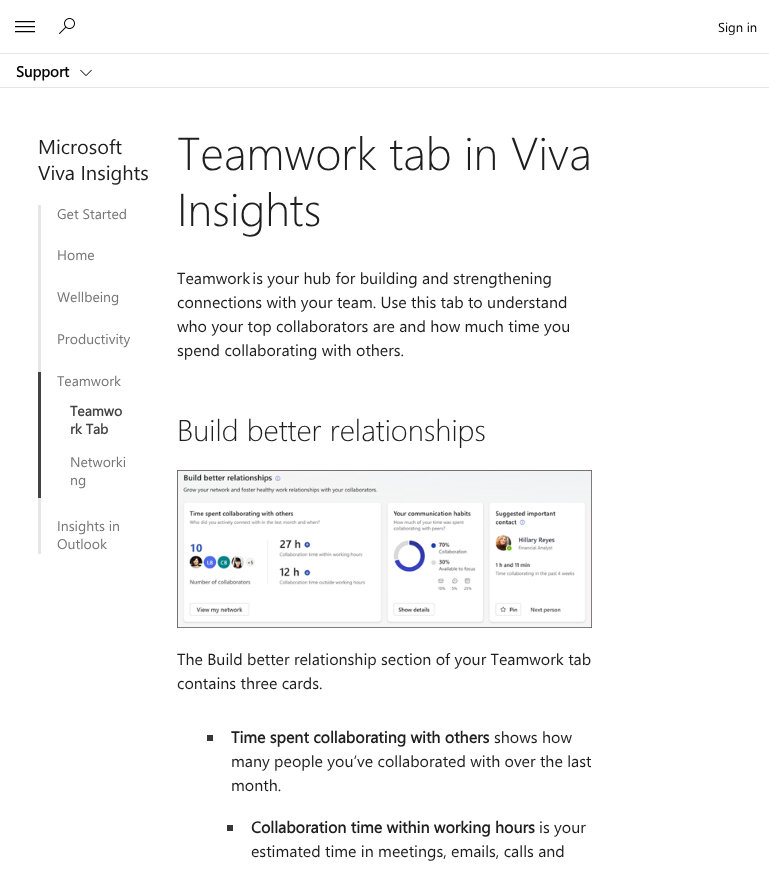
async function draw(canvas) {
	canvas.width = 769;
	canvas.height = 869;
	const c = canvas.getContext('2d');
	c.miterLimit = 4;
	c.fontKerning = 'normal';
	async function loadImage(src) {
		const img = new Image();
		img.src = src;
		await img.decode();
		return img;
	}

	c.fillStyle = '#fff';
	c.fillRect(0, 0, 769, 869);
	c.fillStyle = '#e6e6e6';
	c.fillRect(0, 53, 769, 1);
	c.drawImage(await loadImage('img1.png'), 15, 21, 20, 12);
	c.drawImage(await loadImage('img2.png'), 59, 18, 16, 16);
	c.font = '13px Segoe UI';
	c.fillStyle = '#000';
	c.fillText('Sign in', 718, 32);
	c.fillStyle = '#e6e6e6';
	c.fillRect(0, 87, 769, 1);
	c.font = 'bold 15px Segoe UI';
	c.fillStyle = '#000';
	c.fillText('Support', 16, 77);
	c.drawImage(await loadImage('img3.png'), 80, 69, 12, 7);
	c.font = '20px Segoe UI';
	c.fillStyle = '#1e1e1e';
	c.fillText('Microsoft', 38, 154);
	c.fillText('Viva Insights', 38, 180);
	c.fillStyle = '#e6e6e6';
	c.fillRect(38, 205, 3, 167);
	c.font = '14px Segoe UI';
	c.fillStyle = '#767676';
	for (const [text, x, y] of [
		['Get Started', 57, 219],
		['Home', 57, 260],
		['Wellbeing', 57, 302],
		['Productivity', 57, 344],
	]) {
		c.fillText(text, x, y);
	}
	c.fillStyle = '#434343';
	c.fillRect(38, 372, 3, 126);
	c.fillStyle = '#767676';
	c.fillText('Teamwork', 57, 386);
	c.font = 'bold 14px Segoe UI';
	c.fillStyle = '#434343';
	c.fillText('Teamwo', 70, 416);
	c.fillText('rk Tab', 70, 434);
	c.font = '14px Segoe UI';
	c.fillStyle = '#767676';
	c.fillText('Networki', 70, 467);
	c.fillText('ng', 70, 485);
	c.fillStyle = '#e6e6e6';
	c.fillRect(38, 498, 3, 56);
	c.fillStyle = '#767676';
	c.fillText('Insights in', 57, 531);
	c.fillText('Outlook', 57, 549);
	c.font = '300 46px Segoe UI';
	c.fillStyle = '#1e1e1e';
	c.fillText('Teamwork tab in Viva', 177, 170);
	c.fillText('Insights', 177, 226);
	c.font = '16px Segoe UI';
	for (const [text, x, y] of [
		['Teamwork is your hub for building and strengthening', 177, 284],
		['connections with your team. Use this tab to understand', 177, 308],
		['who your top collaborators are and how much time you', 177, 332],
		['spend collaborating with others.', 177, 356],
	]) {
		c.fillText(text, x, y);
	}
	c.font = '300 30px Segoe UI';
	c.fillText('Build better relationships', 177, 441);
	c.drawImage(await loadImage('img4.png'), 177, 470, 415, 158);
	c.font = '16px Segoe UI';
	c.fillText('The Build better relationship section of your Teamwork tab', 177, 665);
	c.fillText('contains three cards.', 177, 689);
	c.fillStyle = '#363636';
	c.fillRect(207, 735, 6, 6);
	c.font = 'bold 16px Segoe UI';
	c.fillStyle = '#1e1e1e';
	c.fillText('Time spent collaborating with others', 231, 743);
	c.font = '16px Segoe UI';
	for (const [text, x, y] of [
		['shows how', 494, 743],
		['many people you’ve collaborated with over the last', 231, 767],
		['month.', 231, 791],
	]) {
		c.fillText(text, x, y);
	}
	c.fillStyle = '#363636';
	c.fillRect(227, 825, 6, 6);
	c.font = 'bold 16px Segoe UI';
	c.fillStyle = '#1e1e1e';
	c.fillText('Collaboration time within working hours', 251, 833);
	c.font = '16px Segoe UI';
	c.fillText('is your', 539, 833);
	c.fillText('estimated time in meetings, emails, calls and', 251, 857);
}

draw(document.querySelector('canvas'));
